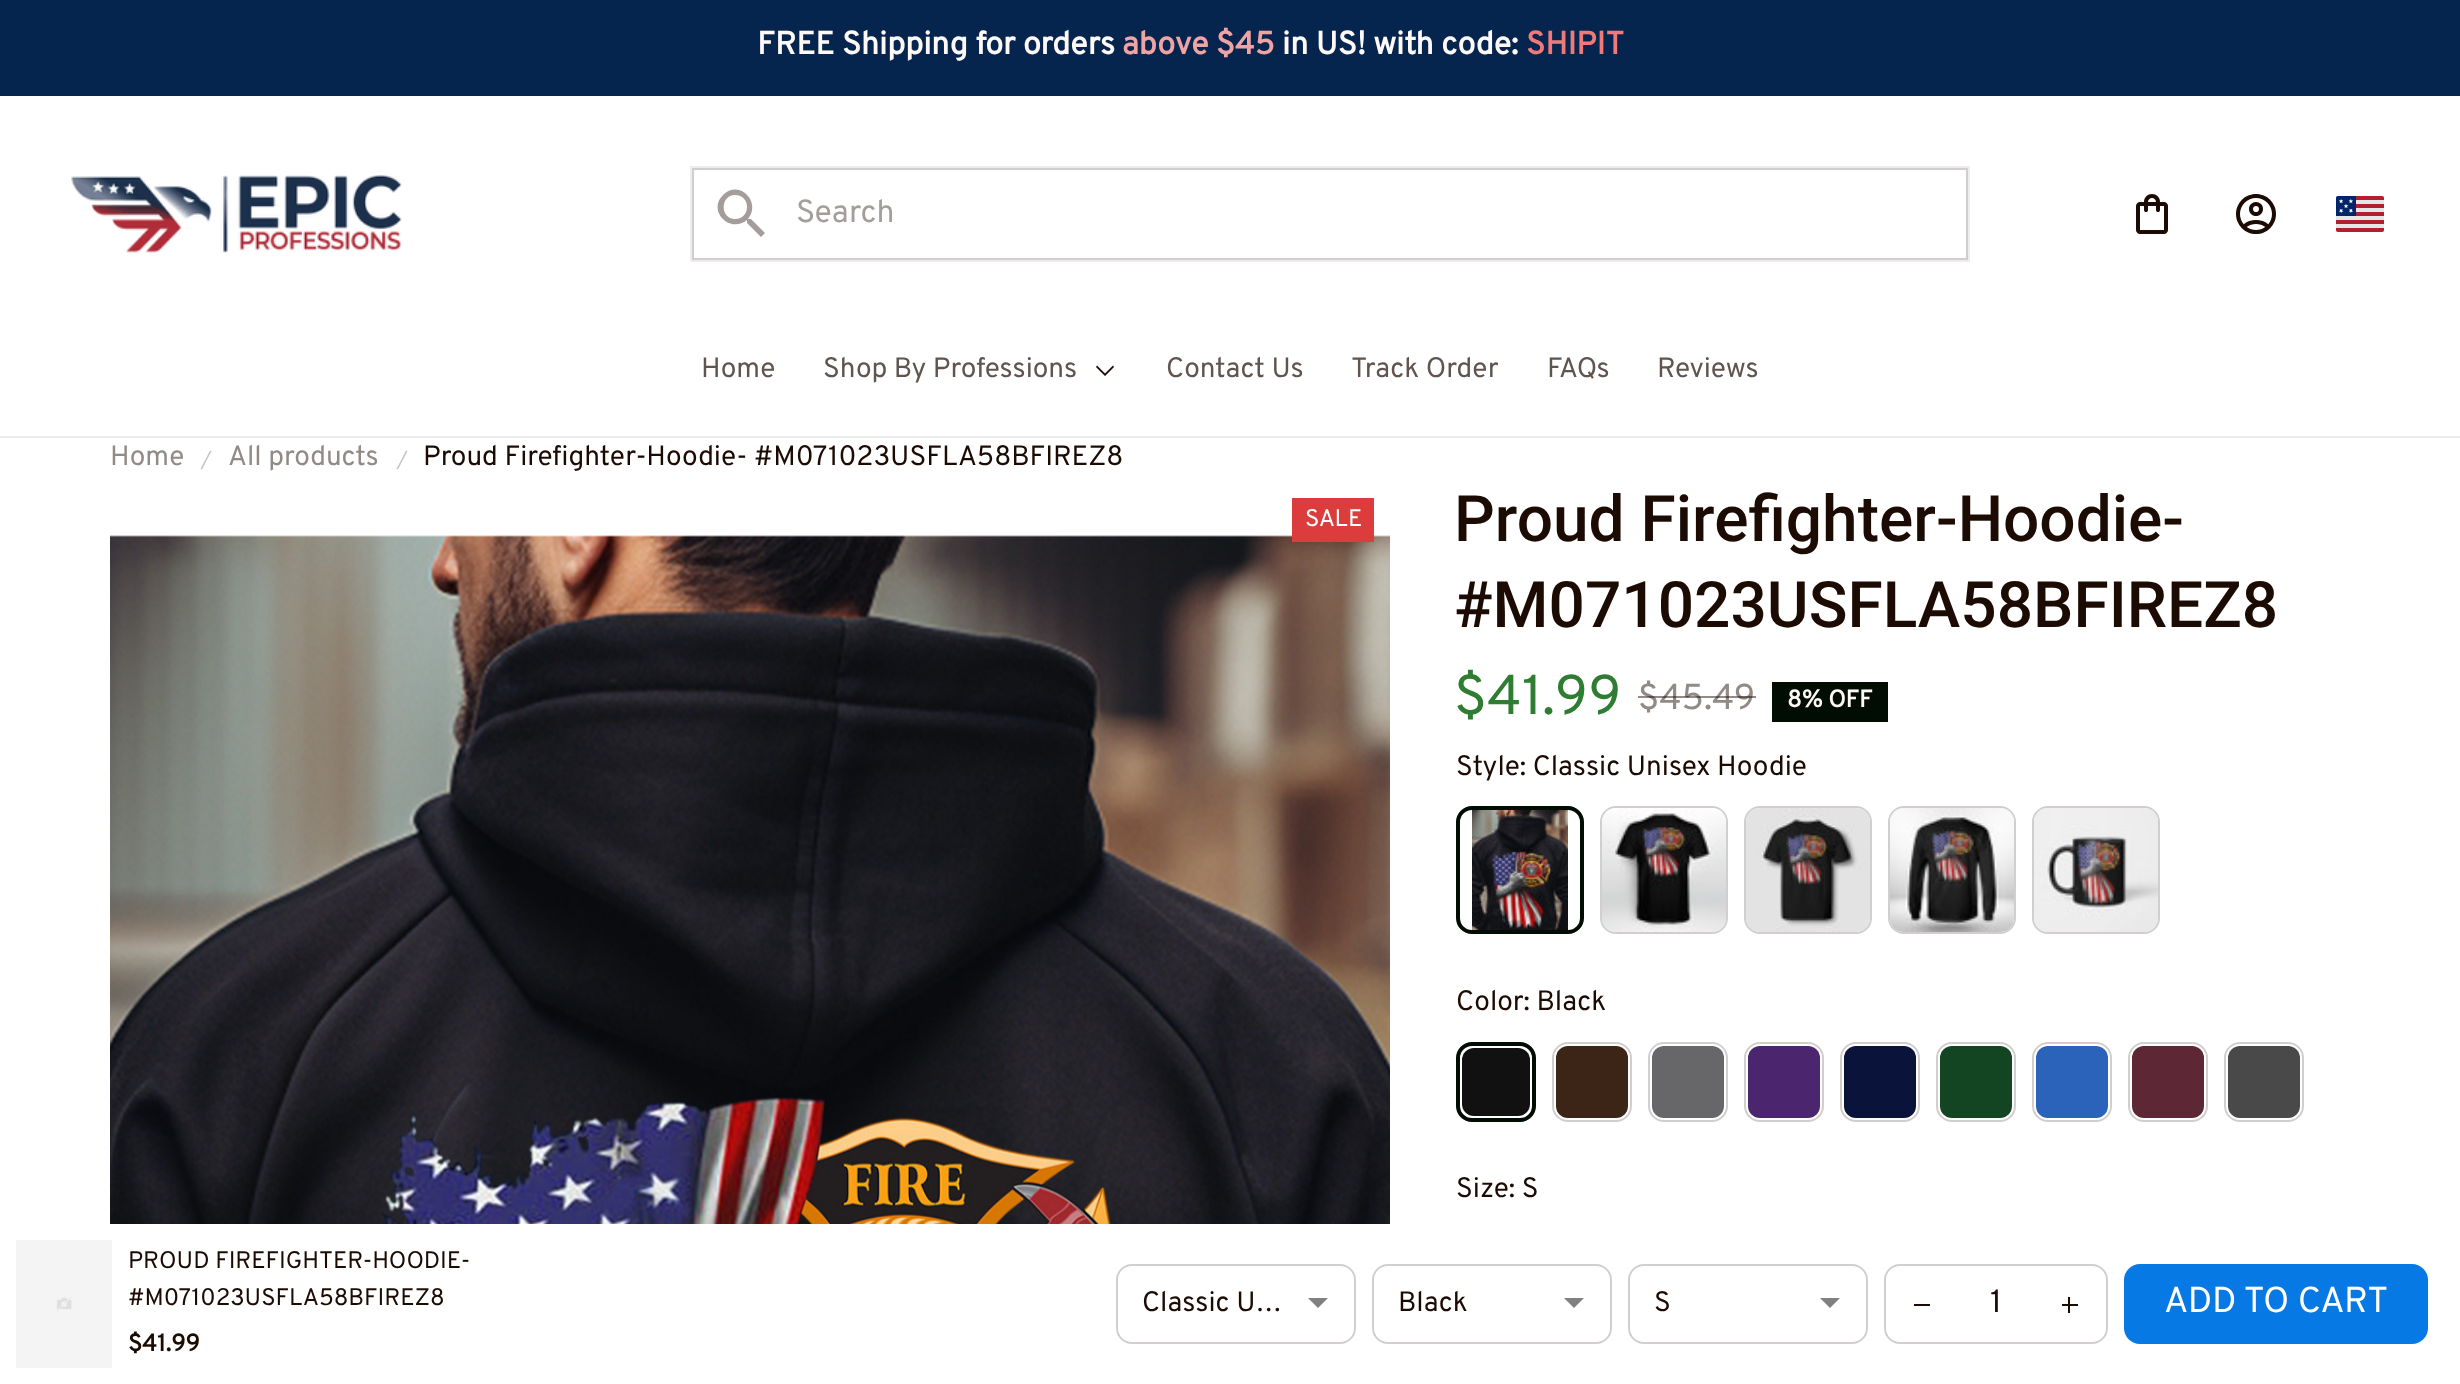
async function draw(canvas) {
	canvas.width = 2460;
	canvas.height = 1384;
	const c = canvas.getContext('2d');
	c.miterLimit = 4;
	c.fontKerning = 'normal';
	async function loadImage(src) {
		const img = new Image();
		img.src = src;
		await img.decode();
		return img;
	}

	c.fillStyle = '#fff';
	c.fillRect(0, 0, 2460, 1384);
	c.fillStyle = '#06254e';
	c.fillRect(0, 0, 2460, 96);
	c.font = 'bold 32px Overpass';
	c.fillStyle = '#fef9f6';
	c.fillText('FREE Shipping for orders', 757, 54);
	c.fillStyle = '#f0a3a3';
	c.fillText('above $45', 1122, 54);
	c.fillStyle = '#fef9f6';
	c.fillText('in US! with code:', 1282, 54);
	c.fillStyle = '#f07a7a';
	c.fillText('SHIPIT', 1526, 54);
	c.fillStyle = '#edebeb';
	c.fillRect(0, 436, 2460, 2);
	c.drawImage(await loadImage('img1.png'), 71, 175, 331, 78);
	c.strokeStyle = '#ededed';
	c.lineWidth = 2;
	c.strokeRect(691, 167, 1278, 94);
	c.strokeStyle = '#d2cecd';
	c.strokeRect(693, 169, 1274, 90);
	c.fillStyle = '#a49d9a';
	c.beginPath();
	c.moveTo(751, 219);
	c.lineTo(749, 219);
	c.lineTo(748, 219);
	c.bezierCurveTo(762, 202, 739, 179, 723, 195);
	c.bezierCurveTo(707, 211, 730, 234, 747, 220);
	c.lineTo(747, 221);
	c.lineTo(747, 223);
	c.lineTo(761, 237);
	c.lineTo(765, 233);
	c.closePath();
	c.moveTo(735, 219);
	c.bezierCurveTo(720, 219, 720, 195, 735, 195);
	c.bezierCurveTo(751, 195, 751, 219, 735, 219);
	c.closePath();
	c.fill();
	c.font = '32px Overpass';
	c.fillText('Search', 796, 222);
	c.drawImage(await loadImage('img2.png'), 2136, 194, 32, 40);
	c.drawImage(await loadImage('img3.png'), 2236, 194, 40, 40);
	c.drawImage(await loadImage('img4.png'), 2336, 196, 48, 36);
	c.font = '28px Overpass';
	c.fillStyle = '#60544f';
	c.fillText('Home', 701, 377);
	c.fillText('Shop By Professions', 823, 377);
	c.fillStyle = '#1c0b03';
	c.beginPath();
	c.moveTo(1105, 376);
	c.lineTo(1114, 367);
	c.lineTo(1113, 365.5);
	c.lineTo(1105, 373.5);
	c.lineTo(1097, 365.5);
	c.lineTo(1096, 367);
	c.closePath();
	c.fill();
	c.fillStyle = '#60544f';
	for (const [text, x, y] of [
		['Contact Us', 1166, 377],
		['Track Order', 1351, 377],
		['FAQs', 1547, 377],
		['Reviews', 1657, 377],
	]) {
		c.fillText(text, x, y);
	}
	c.fillStyle = '#928a86';
	c.fillText('Home', 110, 465);
	c.fillStyle = '#c4c7c4';
	c.beginPath();
	c.moveTo(202, 469.5);
	c.lineTo(200.5, 469);
	c.lineTo(210, 450.5);
	c.lineTo(211.5, 451);
	c.closePath();
	c.fill();
	c.fillStyle = '#928a86';
	c.fillText('All products', 228, 465);
	c.fillStyle = '#c4c7c4';
	c.beginPath();
	c.moveTo(398, 469.5);
	c.lineTo(396.5, 469);
	c.lineTo(406, 450.5);
	c.lineTo(407.5, 451);
	c.closePath();
	c.fill();
	c.fillStyle = '#1c0b03';
	c.fillText('Proud Firefighter-Hoodie- #M071023USFLA58BFIREZ8', 423, 465);
	c.drawImage(await loadImage('img5.png'), 110, 535, 1280, 689);
	c.fillStyle = '#dd3c3c';
	c.fillRect(1292, 498, 82, 44);
	c.font = '24px Overpass';
	c.fillStyle = '#fff';
	c.fillText('SALE', 1305, 526);
	c.font = '500 64px Roboto';
	c.fillStyle = '#1c0b03';
	c.fillText('Proud Firefighter-Hoodie-', 1454, 541);
	c.fillText('#M071023USFLA58BFIREZ8', 1454, 627);
	c.font = '56px Overpass';
	c.fillStyle = '#2e7d32';
	c.fillText('$41.99', 1454, 714);
	c.font = '36px Overpass';
	c.fillStyle = '#928a86';
	c.fillText('$45.49', 1638, 709);
	c.fillStyle = '#1c0b037a';
	c.fillRect(1638, 696, 118, 2);
	c.fillStyle = '#010d03';
	c.fillRect(1772, 682, 116, 40);
	c.font = 'bold 24px Overpass';
	c.fillStyle = '#fef9f6';
	c.fillText('8% OFF', 1787, 707);
	c.font = '28px Overpass';
	c.fillStyle = '#1c0b03';
	c.fillText('Style: Classic Unisex Hoodie', 1456, 775);
	c.beginPath();
	c.roundRect(1458, 808, 124, 124, 14);
	c.strokeStyle = '#010d03';
	c.lineWidth = 4;
	c.stroke();
	c.drawImage(await loadImage('img6.png'), 1472, 810, 96, 120);
	c.beginPath();
	c.roundRect(1601, 807, 126, 126, 15);
	c.strokeStyle = '#d2cecd';
	c.lineWidth = 2;
	c.stroke();
	c.drawImage(await loadImage('img7.png'), 1602, 808, 124, 124);
	c.beginPath();
	c.roundRect(1745, 807, 126, 126, 15);
	c.stroke();
	c.drawImage(await loadImage('img8.png'), 1746, 808, 124, 124);
	c.beginPath();
	c.roundRect(1889, 807, 126, 126, 15);
	c.stroke();
	c.drawImage(await loadImage('img9.png'), 1890, 808, 124, 124);
	c.beginPath();
	c.roundRect(2033, 807, 126, 126, 15);
	c.stroke();
	c.drawImage(await loadImage('img10.png'), 2034, 808, 124, 124);
	c.fillText('Color: Black', 1456, 1010);
	c.beginPath();
	c.roundRect(1458, 1044, 76, 76, 14);
	c.strokeStyle = '#010d03';
	c.lineWidth = 4;
	c.stroke();
	c.fillStyle = '#111';
	c.beginPath();
	c.roundRect(1462, 1048, 68, 68, 12);
	c.fill();
	c.beginPath();
	c.roundRect(1553, 1043, 78, 78, 15);
	c.strokeStyle = '#d2cecd';
	c.lineWidth = 2;
	c.stroke();
	c.fillStyle = '#3c2516';
	c.beginPath();
	c.roundRect(1556, 1046, 72, 72, 12);
	c.fill();
	c.beginPath();
	c.roundRect(1649, 1043, 78, 78, 15);
	c.stroke();
	c.fillStyle = '#676769';
	c.beginPath();
	c.roundRect(1652, 1046, 72, 72, 12);
	c.fill();
	c.beginPath();
	c.roundRect(1745, 1043, 78, 78, 15);
	c.stroke();
	c.fillStyle = '#4b256e';
	c.beginPath();
	c.roundRect(1748, 1046, 72, 72, 12);
	c.fill();
	c.beginPath();
	c.roundRect(1841, 1043, 78, 78, 15);
	c.stroke();
	c.fillStyle = '#0a1339';
	c.beginPath();
	c.roundRect(1844, 1046, 72, 72, 12);
	c.fill();
	c.beginPath();
	c.roundRect(1937, 1043, 78, 78, 15);
	c.stroke();
	c.fillStyle = '#134522';
	c.beginPath();
	c.roundRect(1940, 1046, 72, 72, 12);
	c.fill();
	c.beginPath();
	c.roundRect(2033, 1043, 78, 78, 15);
	c.stroke();
	c.fillStyle = '#2b63ba';
	c.beginPath();
	c.roundRect(2036, 1046, 72, 72, 12);
	c.fill();
	c.beginPath();
	c.roundRect(2129, 1043, 78, 78, 15);
	c.stroke();
	c.fillStyle = '#5d2735';
	c.beginPath();
	c.roundRect(2132, 1046, 72, 72, 12);
	c.fill();
	c.beginPath();
	c.roundRect(2225, 1043, 78, 78, 15);
	c.stroke();
	c.fillStyle = '#494949';
	c.beginPath();
	c.roundRect(2228, 1046, 72, 72, 12);
	c.fill();
	c.fillStyle = '#1c0b03';
	c.fillText('Size: S', 1456, 1197);
	c.drawImage(await loadImage('img11.png'), 16, 1240, 96, 128);
	c.font = '24px Overpass';
	c.fillText('PROUD FIREFIGHTER-HOODIE-', 128, 1268);
	c.fillText('#M071023USFLA58BFIREZ8', 128, 1305);
	c.font = 'bold 24px Overpass';
	c.fillText('$41.99', 128, 1351);
	c.fillStyle = '#808080';
	c.beginPath();
	c.moveTo(1308, 1298);
	c.lineTo(1328, 1298);
	c.lineTo(1318, 1308);
	c.closePath();
	c.fill();
	c.beginPath();
	c.roundRect(1117, 1265, 238, 78, 15);
	c.stroke();
	c.font = '28px Overpass';
	c.fillStyle = '#1c0b03';
	c.fillText('Classic U…', 1142, 1311);
	c.fillStyle = '#808080';
	c.beginPath();
	c.moveTo(1564, 1298);
	c.lineTo(1584, 1298);
	c.lineTo(1574, 1308);
	c.closePath();
	c.fill();
	c.beginPath();
	c.roundRect(1373, 1265, 238, 78, 15);
	c.stroke();
	c.fillStyle = '#1c0b03';
	c.fillText('Black', 1398, 1311);
	c.fillStyle = '#808080';
	c.beginPath();
	c.moveTo(1820, 1298);
	c.lineTo(1840, 1298);
	c.lineTo(1830, 1308);
	c.closePath();
	c.fill();
	c.beginPath();
	c.roundRect(1629, 1265, 238, 78, 15);
	c.stroke();
	c.fillStyle = '#1c0b03';
	c.fillText('S', 1654, 1311);
	c.beginPath();
	c.roundRect(1885, 1265, 222, 78, 15);
	c.stroke();
	c.fillRect(1914, 1304, 16, 2);
	c.font = '32px Overpass';
	c.fillText('1', 1990, 1312);
	c.fillRect(2062, 1304, 16, 2);
	c.fillRect(2068, 1297, 2, 16);
	c.fillStyle = '#0779e4';
	c.beginPath();
	c.roundRect(2124, 1264, 304, 80, 16);
	c.fill();
	c.font = '36px Overpass';
	c.fillStyle = '#fff';
	c.fillText('ADD TO CART', 2164, 1312);
}

draw(document.querySelector('canvas'));
